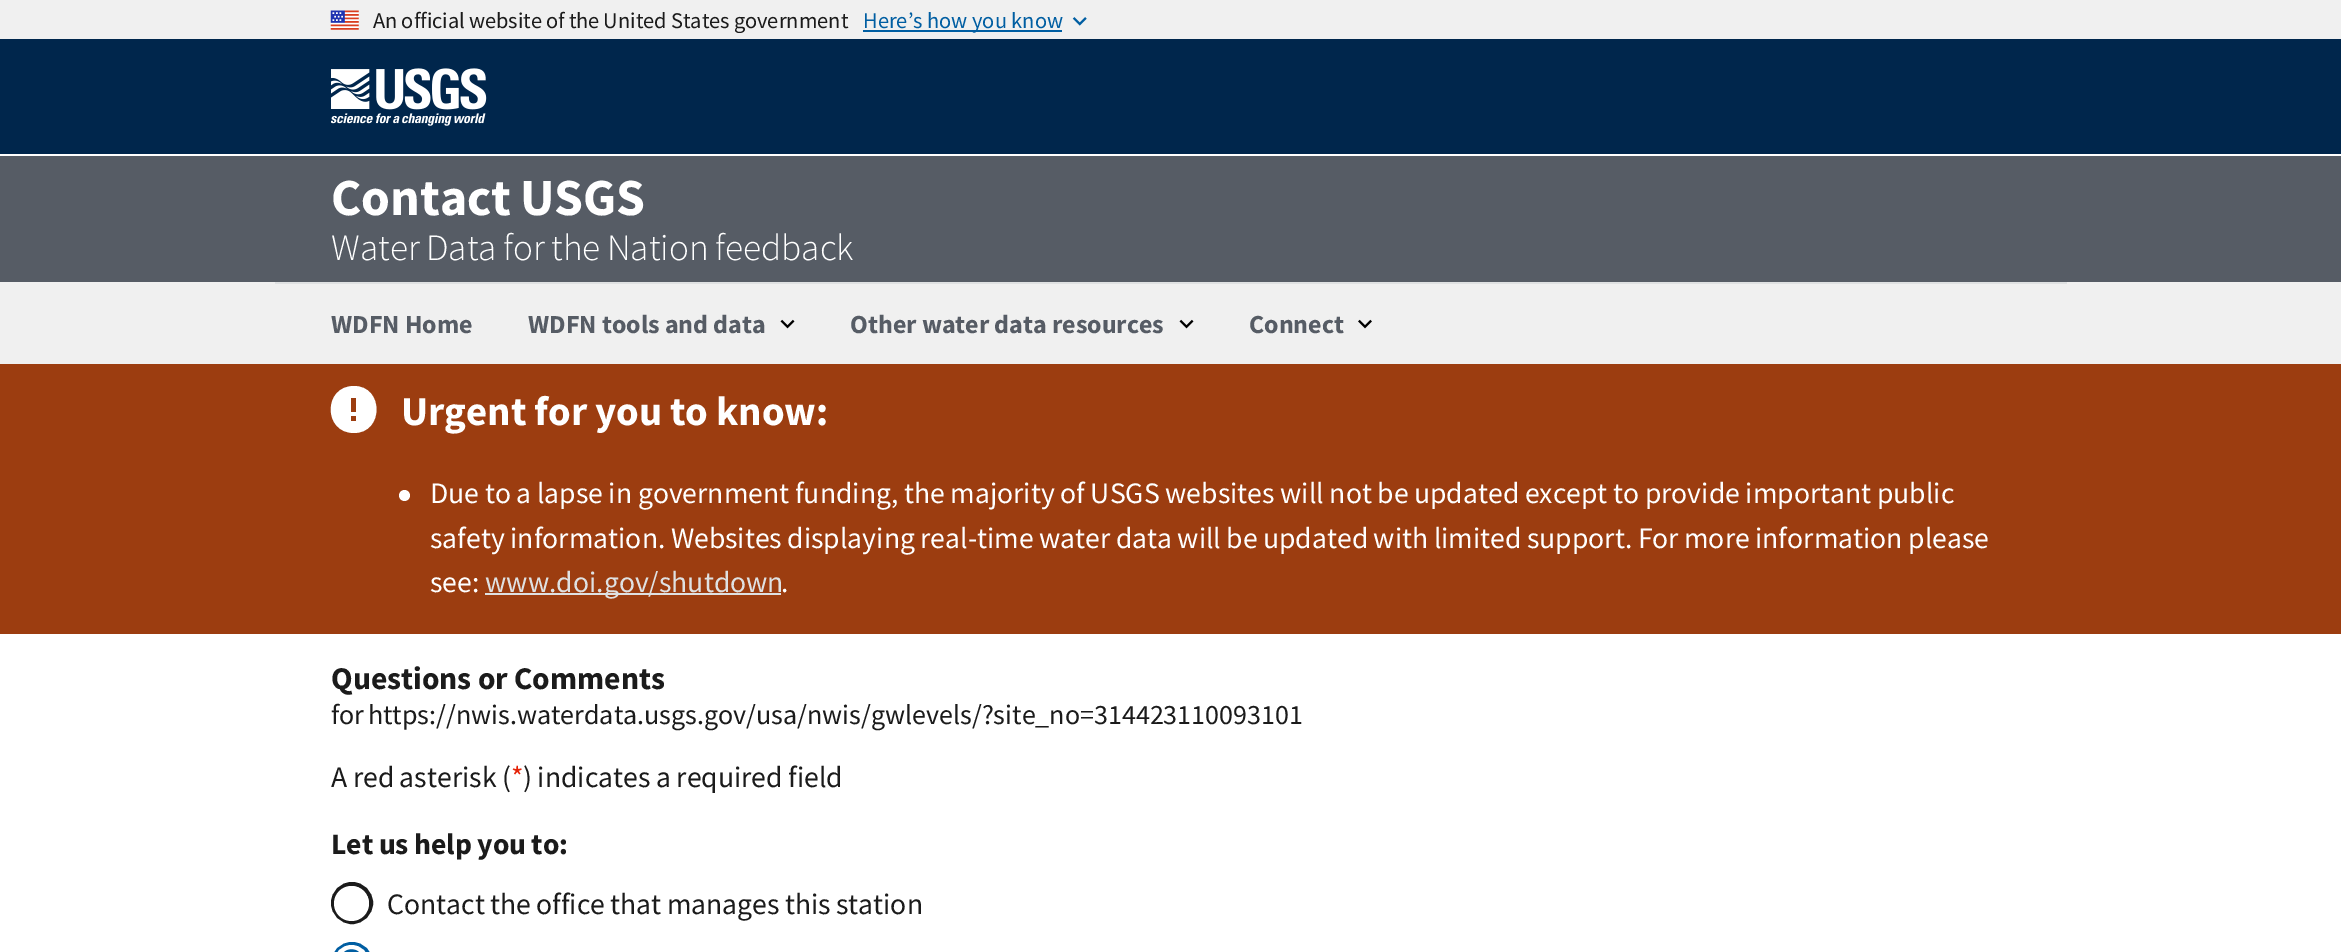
%!PS
<< /PageSize [2341 952] >> setpagedevice
/mt/moveto load def
/li/lineto load def
/ct/curveto load def
/cp/closepath load def
/fl/fill load def
/st/stroke load def
/gs/gsave load def
/gr/grestore load def
/lw/setlinewidth load def
/co { dup -16 bitshift 255 div exch dup -8 bitshift 255 and 255 div exch 255 and 255 div setrgbcolor } def
/fn { [ exch dup neg 0 0 3 -1 roll 0 0 ] selectfont } def
/tx { co fn moveto show } def
/bx { co rectfill } def
/ci { newpath 0 360 arc closepath } def
/rr { 5 dict begin { /r /h /w /y /x } { exch def } forall
  x r add y moveto x w add y 2 copy h add r arct x w add y h add x 1 index r arct
  x y h add x y r arct x y 2 copy exch w add exch r arct closepath end } def
/im { 5 dict begin { /h /w /y /x /name } { exch def } forall
  gsave x y translate w h scale
  w h 8 [w 0 0 h 0 0] name (r) file false 3 colorimage grestore end } def
0 952 translate 1 -1 scale
4 setmiterlimit
0 0 2341 952 16#FFFFFF bx
0 0 2341 39 16#F0F0F0 bx
(media/1.raw) 330 10 29 20 im
863 30 199 2 16#005EA2 bx
(media/2.raw) 1072 17 15 9 im
0 39 2341 115 16#00264C bx
(media/3.raw) 331 68 156 58 im
0 156 2341 126 16#565C65 bx
0 282 2341 82 16#F0F0F0 bx
275 282 1792 2 16#DFE1E2 bx
(media/4.raw) 780 319 15 10 im
(media/4.raw) 1179 319 15 10 im
(media/5.raw) 1358 319 14 10 im
0 364 2341 270 16#9C3D10 bx
16#FFFFFF co
354 386 mt 323 386 323 433 354 433 ct 384 433 384 386 354 386 ct cp 356 421 mt 351 421 li 351 416 li 356 416 li cp 356 412 mt 351 412 li 351 398 li 356 398 li cp fl
404.5 495.5 5.5 ci fl
485 593 296 2 16#DFE1E2 bx
16#1B1B1B co
4 lw
352 903 19 ci st
16#FFFFFF co
351.5 903.5 17.5 ci fl
16#005EA2 co
333 944 38 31 19 rr st
336 947 31 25 15.5 rr gs fl gr
16#FFFFFF co
st
/SourceSansPro-Regular 22.4 fn
16#1B1B1B co
373 28 mt -.5 0 32 (An official website of the United States government) widthshow
(Here’s how you know) 863 28 /SourceSansPro-Regular 22.4 16#005EA2 tx
/SourceSansPro-Bold 52 fn
16#FFFFFF co
331 215 mt -2 0 32 (Contact USGS) widthshow
/SourceSansPro-Light 37.25 fn
331 260 mt -1 0 32 (Water Data for the Nation feedback) widthshow
(WDFN Home) 331 333 /SourceSansPro-Bold 26 16#565C65 tx
(WDFN tools and data) 528 333 /SourceSansPro-Bold 26 16#565C65 tx
(Other water data resources) 850 333 /SourceSansPro-Bold 26 16#565C65 tx
(Connect) 1249 333 /SourceSansPro-Bold 26 16#565C65 tx
/SourceSansPro-Bold 40.9 fn
16#FFFFFF co
401 425 mt -.5 0 32 (Urgent for you to know:) widthshow
/SourceSansPro-Regular 29.68 fn
430 503 mt -.4 0 32 (Due to a lapse in government funding, the majority of USGS websites will not be updated except to provide important public) widthshow
430 548 mt -.6 0 32 (safety information. Websites displaying real-time water data will be updated with limited support. For more information please) widthshow
(see:) 430 592 /SourceSansPro-Regular 29.68 16#FFFFFF tx
(www.doi.gov/shutdown) 485 592 /SourceSansPro-Regular 29.68 16#DFE1E2 tx
(.) 781 592 /SourceSansPro-Regular 29.68 16#FFFFFF tx
(Questions or Comments) 331 689 /SourceSansPro-Bold 31.6 16#1B1B1B tx
/SourceSansPro-Regular 28 fn
331 724 mt -2 0 32 (for https://nwis.waterdata.usgs.gov/usa/nwis/gwlevels/?site_no=314423110093101) widthshow
/SourceSansPro-Regular 29.68 fn
331 787 mt -.5 0 32 (A red asterisk \() widthshow
(*) 511 787 /SourceSansPro-Regular 29.68 16#E52207 tx
16#1B1B1B co
523 787 mt -.5 0 32 (\) indicates a required field) widthshow
/SourceSansPro-Bold 29.68 fn
331 854 mt -.5 0 32 (Let us help you to:) widthshow
/SourceSansPro-Regular 29.68 fn
387 914 mt -.75 0 32 (Contact the office that manages this station) widthshow
showpage
